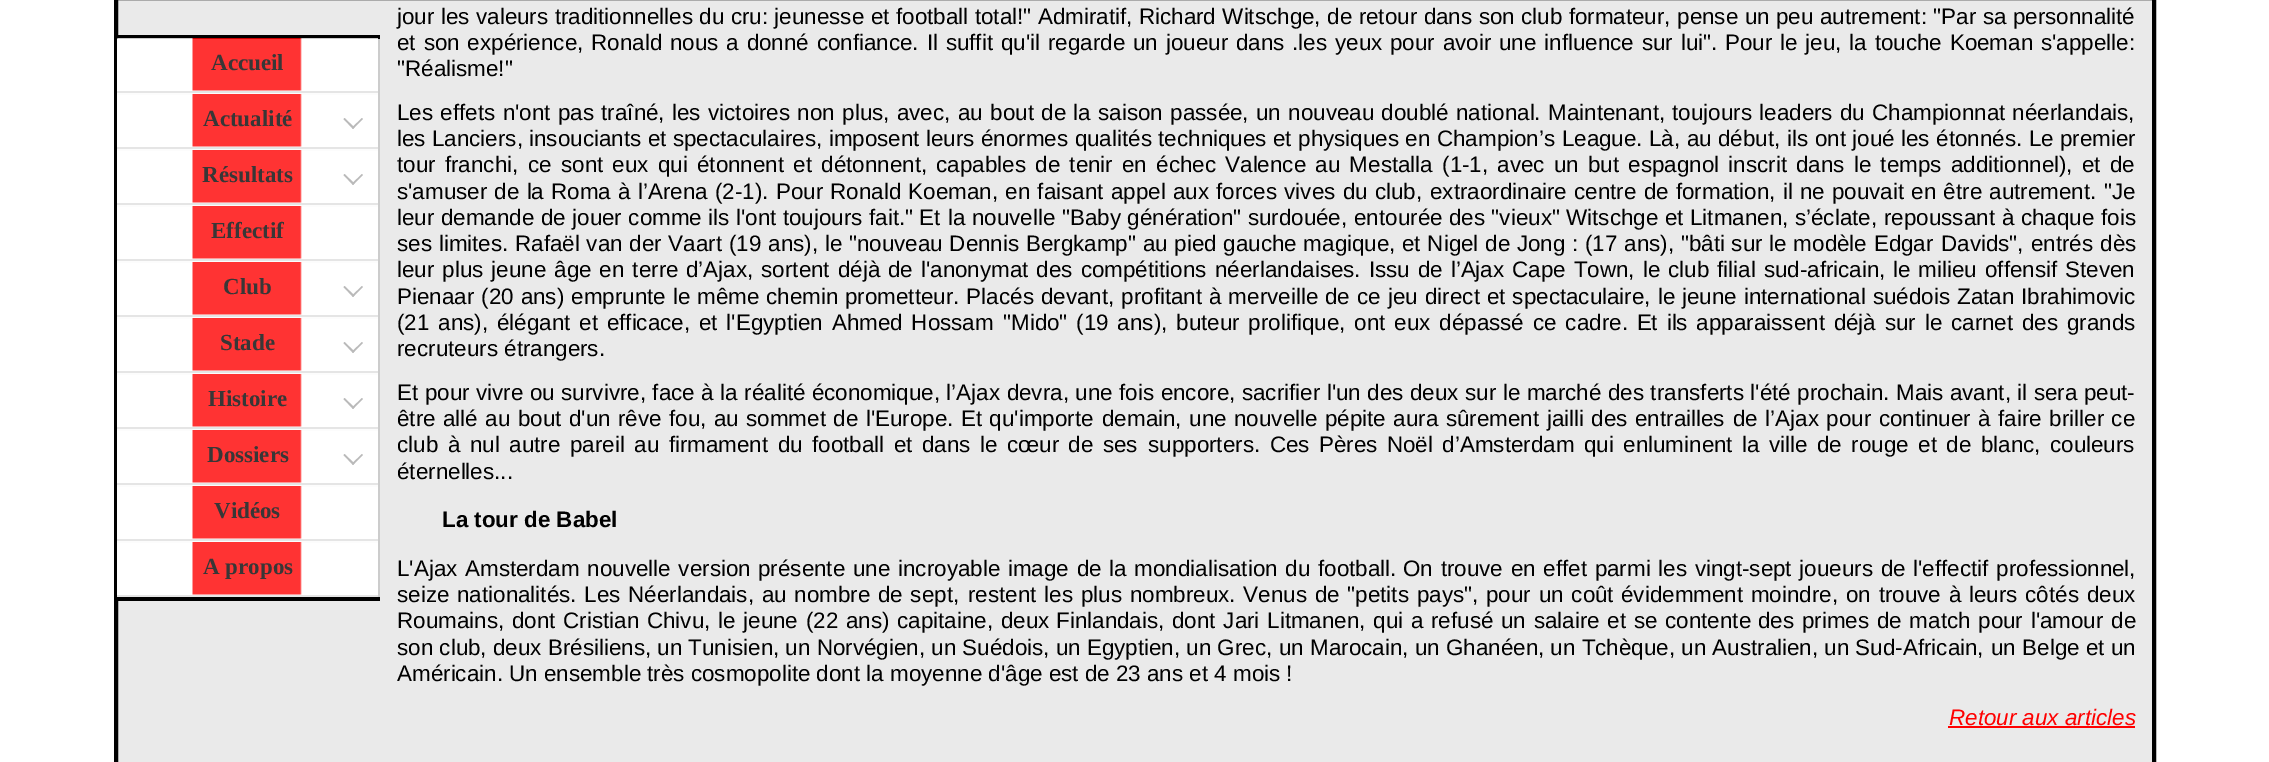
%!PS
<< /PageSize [2269 762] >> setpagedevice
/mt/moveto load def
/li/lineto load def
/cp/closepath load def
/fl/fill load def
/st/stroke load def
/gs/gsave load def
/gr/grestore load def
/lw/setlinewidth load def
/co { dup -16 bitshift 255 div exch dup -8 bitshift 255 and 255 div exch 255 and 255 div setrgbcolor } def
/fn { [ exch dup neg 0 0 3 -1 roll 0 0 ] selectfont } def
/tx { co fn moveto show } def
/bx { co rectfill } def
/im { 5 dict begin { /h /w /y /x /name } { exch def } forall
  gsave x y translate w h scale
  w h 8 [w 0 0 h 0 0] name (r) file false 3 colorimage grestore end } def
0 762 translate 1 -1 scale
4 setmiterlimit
0 0 2269 762 16#FFFFFF bx
16#EAEAEA co
116 -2 mt 2154 -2 li 2154 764 li 116 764 li cp gs fl gr
16#000000 co
4 lw
st
117 35 263 4 16#000000 bx
117 597 263 4 16#000000 bx
378 39 2 558 16#CCCCCC bx
117 91 261 2 16#E5E5E5 bx
117 39 261 52 16#FFFFFF bx
(media/1.raw) 117 38 261 53 im
117 93 261 2 16#FCFCFC bx
117 147 261 2 16#E5E5E5 bx
117 95 261 52 16#FFFFFF bx
(media/2.raw) 192 94 110 53 im
16#BABABA co
362 118 mt 363 119 li 353 129 li 352 127.5 li cp fl
344.5 118 mt 354.5 127.5 li 353 129 li 343.5 119 li cp fl
117 149 261 2 16#FCFCFC bx
117 203 261 2 16#E5E5E5 bx
117 151 261 52 16#FFFFFF bx
(media/2.raw) 192 150 110 53 im
16#BABABA co
362 174 mt 363 175 li 353 185 li 352 183.5 li cp fl
344.5 174 mt 354.5 183.5 li 353 185 li 343.5 175 li cp fl
117 205 261 2 16#FCFCFC bx
117 259 261 2 16#E5E5E5 bx
117 207 261 52 16#FFFFFF bx
(media/2.raw) 192 206 110 53 im
117 261 261 2 16#FCFCFC bx
117 315 261 2 16#E5E5E5 bx
117 263 261 52 16#FFFFFF bx
(media/2.raw) 192 262 110 53 im
16#BABABA co
362 286 mt 363 287 li 353 297 li 352 295.5 li cp fl
344.5 286 mt 354.5 295.5 li 353 297 li 343.5 287 li cp fl
117 317 261 2 16#FCFCFC bx
117 371 261 2 16#E5E5E5 bx
117 319 261 52 16#FFFFFF bx
(media/2.raw) 192 318 110 53 im
16#BABABA co
362 342 mt 363 343 li 353 353 li 352 351.5 li cp fl
344.5 342 mt 354.5 351.5 li 353 353 li 343.5 343 li cp fl
117 373 261 2 16#FCFCFC bx
117 427 261 2 16#E5E5E5 bx
117 375 261 52 16#FFFFFF bx
(media/2.raw) 192 374 110 53 im
16#BABABA co
362 398 mt 363 399 li 353 409 li 352 407.5 li cp fl
344.5 398 mt 354.5 407.5 li 353 409 li 343.5 399 li cp fl
117 429 261 2 16#FCFCFC bx
117 483 261 2 16#E5E5E5 bx
117 431 261 52 16#FFFFFF bx
(media/2.raw) 192 430 110 53 im
16#BABABA co
362 454 mt 363 455 li 353 465 li 352 463.5 li cp fl
344.5 454 mt 354.5 463.5 li 353 465 li 343.5 455 li cp fl
117 485 261 2 16#FCFCFC bx
117 539 261 2 16#E5E5E5 bx
117 487 261 52 16#FFFFFF bx
(media/2.raw) 192 486 110 53 im
117 541 261 2 16#FCFCFC bx
117 595 261 2 16#E5E5E5 bx
117 543 261 52 16#FFFFFF bx
(media/2.raw) 192 542 110 53 im
1948 726 187 2 16#FF0000 bx
(Accueil) 211 70 /LiberationSerif-Bold 23 16#383737 tx
(Actualité) 203 126 /LiberationSerif-Bold 23 16#383737 tx
(Résultats) 202 182 /LiberationSerif-Bold 23 16#383737 tx
(Effectif) 211 238 /LiberationSerif-Bold 23 16#383737 tx
(Club) 223 294 /LiberationSerif-Bold 23 16#383737 tx
(Stade) 220 350 /LiberationSerif-Bold 23 16#383737 tx
(Histoire) 208 406 /LiberationSerif-Bold 23 16#383737 tx
(Dossiers) 207 462 /LiberationSerif-Bold 23 16#383737 tx
(Vidéos) 214 518 /LiberationSerif-Bold 23 16#383737 tx
(A propos) 203 574 /LiberationSerif-Bold 23 16#383737 tx
/LiberationSans-Regular 22.4 fn
16#000000 co
397 24 mt .25 0 32 (jour les valeurs traditionnelles du cru: jeunesse et) widthshow
896 24 mt .25 0 32 (football total!" Admiratif, Richard Witschge, de retour dans son) widthshow
1521 24 mt .25 0 32 (club formateur, pense un peu autrement: "Par sa personnalité) widthshow
397 50 mt 1.6 0 32 (et son expérience, Ronald nous a donné confiance. Il suffit) widthshow
1001 50 mt 1.6 0 32 (qu'il regarde un joueur dans .les yeux pour avoir une influence sur lui".) widthshow
1725 50 mt 1.6 0 32 (Pour le jeu, la touche Koeman s'appelle:) widthshow
("Réalisme!") 397 76 /LiberationSans-Regular 22.4 16#000000 tx
397 120 mt 1.1 0 32 (Les effets n'ont pas traîné, les victoires non plus, avec,) widthshow
958 120 mt 1.1 0 32 (au bout de la saison passée, un nouveau doublé national.) widthshow
1548 120 mt 1 0 32 (Maintenant, toujours leaders du Championnat néerlandais,) widthshow
(les Lanciers,) 397 146 /LiberationSans-Regular 22.4 16#000000 tx
529 146 mt .25 0 32 (insouciants et spectaculaires, imposent leurs énormes qualités techniques et physiques en Champion’s League. Là, au début,) widthshow
1787 146 mt .25 0 32 (ils ont joué les étonnés. Le premier) widthshow
397 172 mt 3 0 32 (tour franchi,) widthshow
528 172 mt 3 0 32 (ce sont eux qui étonnent et détonnent, capables de tenir) widthshow
1122 172 mt 3 0 32 (en échec Valence au Mestalla \(1-1, avec un but espagnol inscrit) widthshow
1796 172 mt 3 0 32 (dans le temps additionnel\), et de) widthshow
397 199 mt 1 0 32 (s'amuser de la Roma à l’Arena) widthshow
715 199 mt 1 0 32 (\(2-1\). Pour Ronald Koeman, en faisant appel aux forces vives du club,) widthshow
1430 199 mt 1 0 32 (extraordinaire centre de formation, il ne pouvait en être autrement.) widthshow
("Je) 2104 199 /LiberationSans-Regular 22.4 16#000000 tx
397 225 mt .25 0 32 (leur demande de jouer comme ils l'ont toujours fait." Et) widthshow
948 225 mt .25 0 32 (la nouvelle "Baby génération" surdouée,) widthshow
1354 225 mt .25 0 32 (entourée des "vieux" Witschge et Litmanen, s’éclate,) widthshow
1884 225 mt .5 0 32 (repoussant à chaque fois) widthshow
397 251 mt .5 0 32 (ses limites. Rafaël van der Vaart) widthshow
729 251 mt .5 0 32 (\(19 ans\), le "nouveau Dennis Bergkamp" au pied gauche magique,) widthshow
1402 251 mt .5 0 32 (et Nigel de Jong : \(17 ans\), "bâti sur le modèle Edgar) widthshow
1941 251 mt 1 0 32 (Davids", entrés dès) widthshow
397 277 mt 1.75 0 32 (leur plus jeune âge en terre) widthshow
686 277 mt 1.75 0 32 (d’Ajax, sortent déjà de l'anonymat des compétitions) widthshow
1215 277 mt 1.75 0 32 (néerlandaises. Issu de l’Ajax Cape Town, le club filial sud-africain,) widthshow
1893 277 mt 1.75 0 32 (le milieu offensif Steven) widthshow
397 304 mt .75 0 32 (Pienaar \(20 ans\) emprunte le même chemin) widthshow
845 304 mt .75 0 32 (prometteur. Placés devant, profitant à merveille de ce jeu) widthshow
1425 304 mt .75 0 32 (direct et spectaculaire, le jeune international suédois Zatan Ibrahimovic) widthshow
397 330 mt 2.6 0 32 (\(21 ans\), élégant et efficace, et l'Egyptien Ahmed Hossam) widthshow
1003 330 mt 2.6 0 32 ("Mido" \(19 ans\), buteur prolifique, ont eux dépassé) widthshow
1533 330 mt 2.6 0 32 (ce cadre. Et ils apparaissent déjà sur le carnet des grands) widthshow
(recruteurs étrangers.) 397 356 /LiberationSans-Regular 22.4 16#000000 tx
397 400 mt .3 0 32 (Et pour vivre ou survivre, face à la réalité économique, l’Ajax devra, une fois encore, sacrifier l'un des deux sur le marché des transferts l'été prochain. Mais avant, il sera peut-) widthshow
(être) 397 426 /LiberationSans-Regular 22.4 16#000000 tx
443 426 mt 1.25 0 32 (allé au bout d'un rêve fou, au sommet de l'Europe. Et qu'importe) widthshow
1102 426 mt 1.25 0 32 (demain, une nouvelle pépite aura sûrement jailli des entrailles) widthshow
1733 426 mt 1.25 0 32 (de l’Ajax pour continuer à faire briller ce) widthshow
397 452 mt 3.25 0 32 (club à) widthshow
470 452 mt 3.25 0 32 (nul autre pareil au firmament du football et dans le cœur de ses) widthshow
1148 452 mt 3.25 0 32 (supporters. Ces Pères Noël d’Amsterdam qui enluminent) widthshow
1742 452 mt 3.25 0 32 (la ville de rouge et de blanc, couleurs) widthshow
(éternelles...) 397 479 /LiberationSans-Regular 22.4 16#000000 tx
(La tour de Babel) 442 527 /LiberationSans-Bold 22.4 16#000000 tx
/LiberationSans-Regular 22.4 fn
397 576 mt 1.5 0 32 (L'Ajax Amsterdam nouvelle version) widthshow
758 576 mt 1.5 0 32 (présente une incroyable image de la mondialisation du football.) widthshow
1403 576 mt 1.5 0 32 (On trouve en effet parmi les vingt-sept joueurs de l'effectif professionnel,) widthshow
397 602 mt 1.5 0 32 (seize nationalités. Les Néerlandais, au nombre de sept,) widthshow
968 602 mt 1.6 0 32 (restent les plus nombreux. Venus de "petits pays", pour un coût) widthshow
1621 602 mt 1.6 0 32 (évidemment moindre, on trouve à leurs côtés) widthshow
(deux) 2087 602 /LiberationSans-Regular 22.4 16#000000 tx
397 628 mt 1.5 0 32 (Roumains, dont Cristian Chivu, le jeune \(22 ans\) capitaine, deux) widthshow
1056 628 mt 1.5 0 32 (Finlandais, dont Jari Litmanen, qui a refusé un salaire et se contente) widthshow
1758 628 mt 1.5 0 32 (des primes de match pour l'amour de) widthshow
(son club, deux Brésiliens, un Tunisien, un Norvégien, un Suédois, un Egyptien, un Grec,) 397 655 /LiberationSans-Regular 22.4 16#000000 tx
(un Marocain, un Ghanéen, un Tchèque, un Australien, un Sud-Africain,) 1279 655 /LiberationSans-Regular 22.4 16#000000 tx
(un Belge et un) 1991 655 /LiberationSans-Regular 22.4 16#000000 tx
(Américain. Un ensemble très cosmopolite dont la moyenne d'âge est de 23 ans et 4 mois !) 397 681 /LiberationSans-Regular 22.4 16#000000 tx
(Retour aux articles) 1949 725 /LiberationSans-Italic 22.4 16#FF0000 tx
showpage
